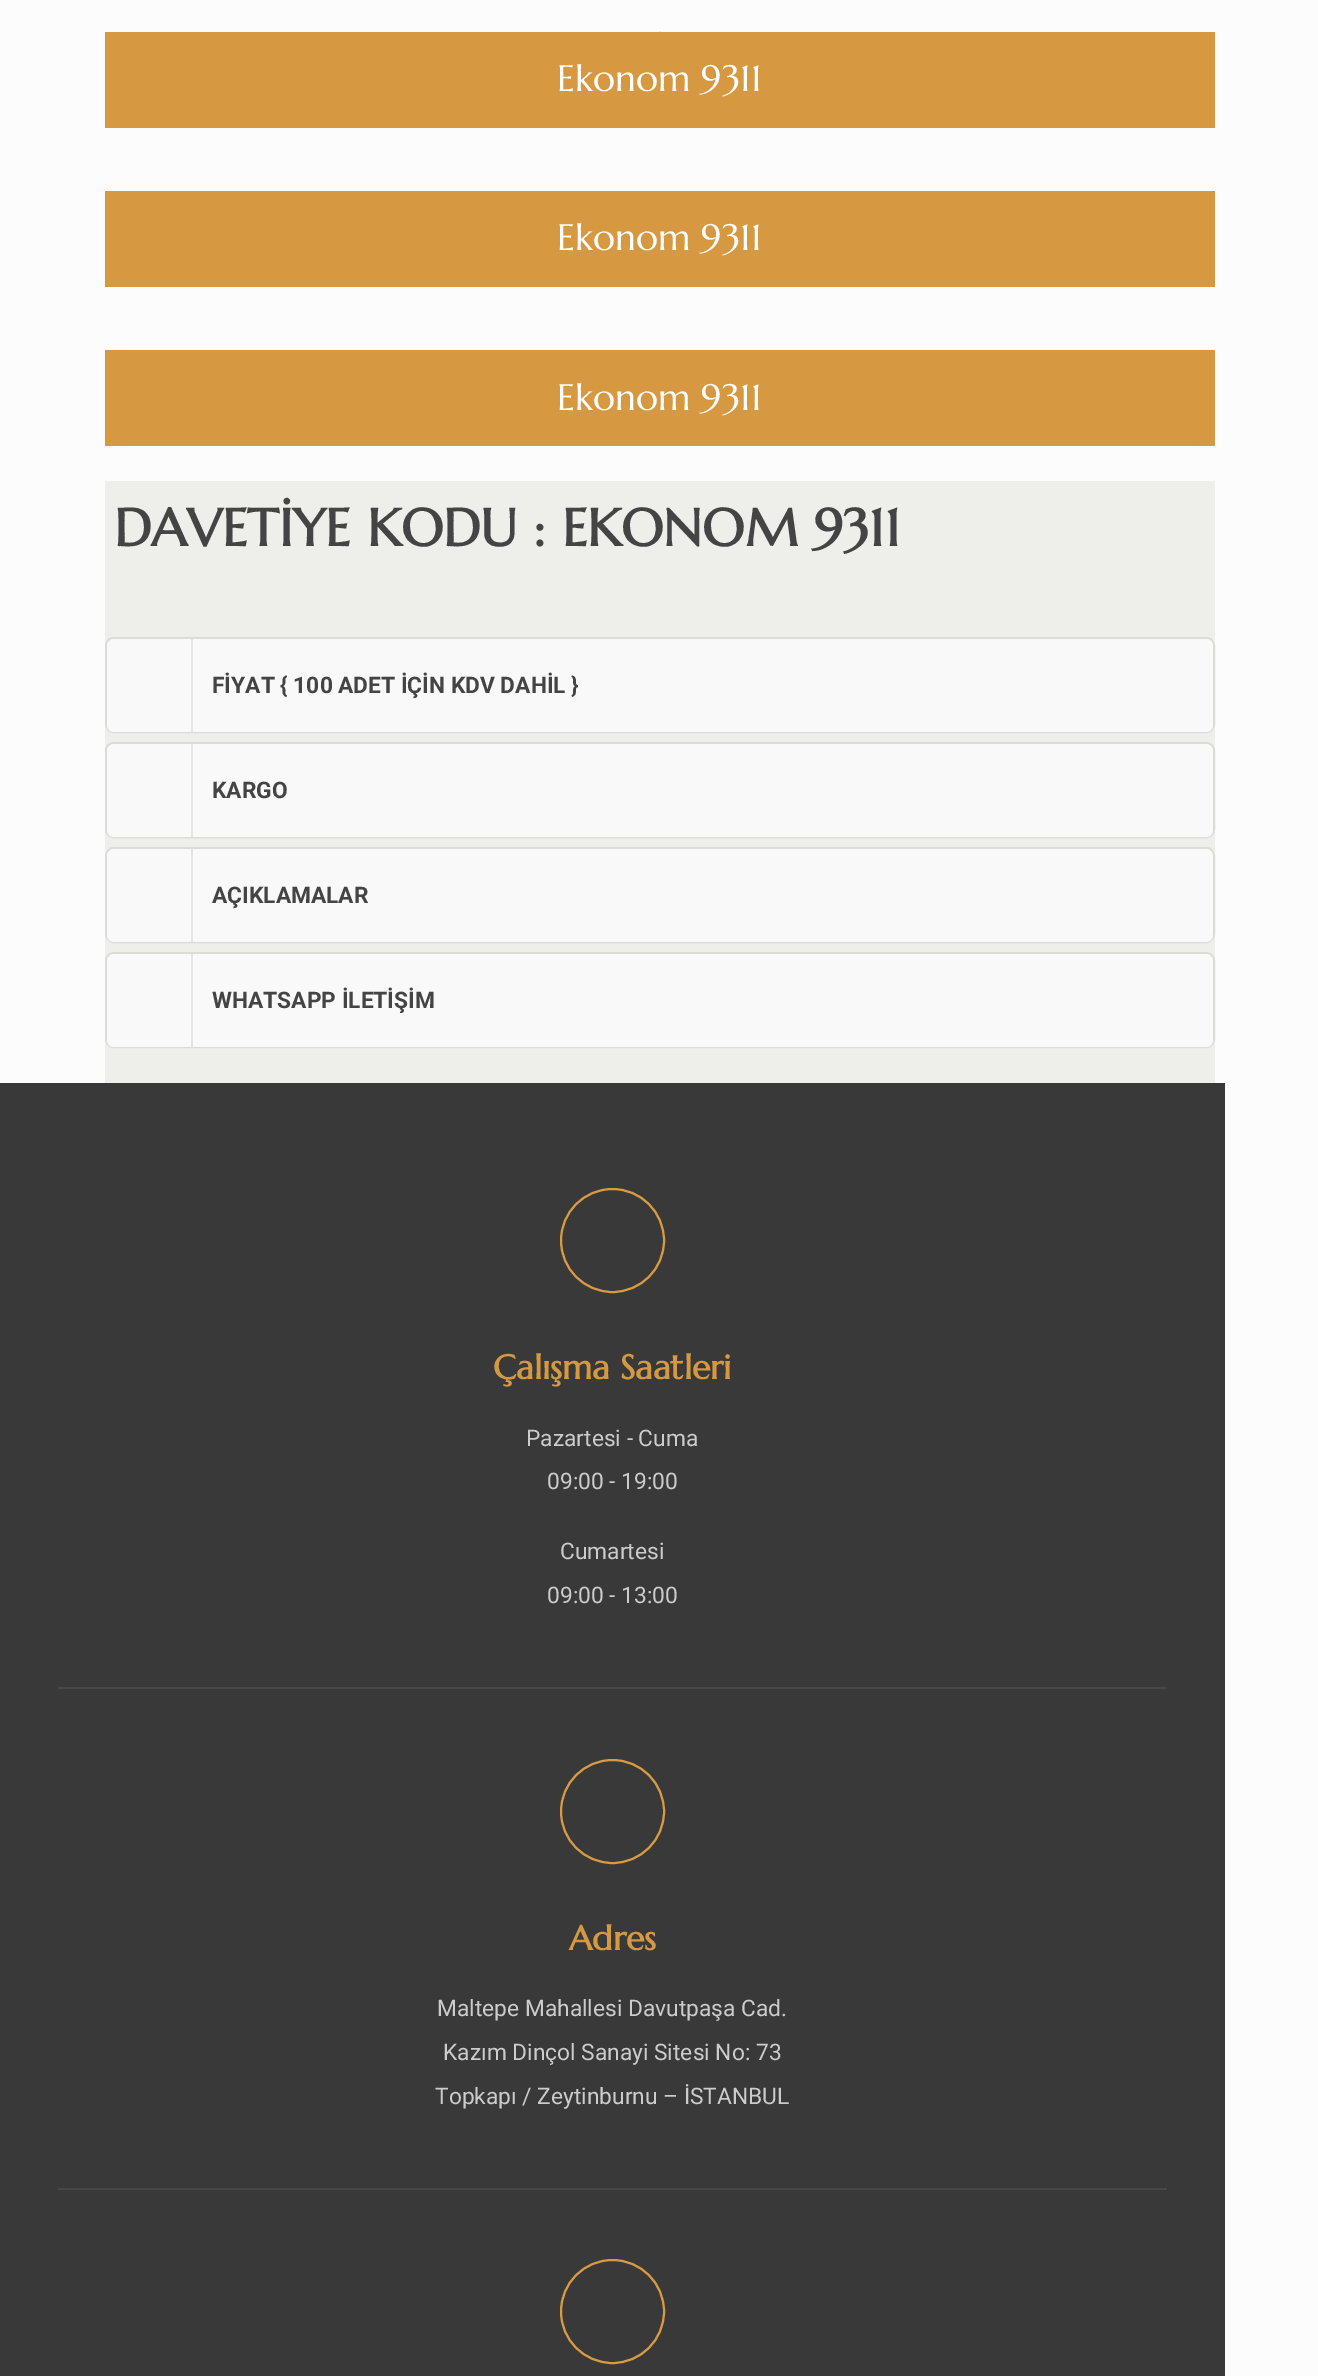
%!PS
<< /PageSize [1318 2376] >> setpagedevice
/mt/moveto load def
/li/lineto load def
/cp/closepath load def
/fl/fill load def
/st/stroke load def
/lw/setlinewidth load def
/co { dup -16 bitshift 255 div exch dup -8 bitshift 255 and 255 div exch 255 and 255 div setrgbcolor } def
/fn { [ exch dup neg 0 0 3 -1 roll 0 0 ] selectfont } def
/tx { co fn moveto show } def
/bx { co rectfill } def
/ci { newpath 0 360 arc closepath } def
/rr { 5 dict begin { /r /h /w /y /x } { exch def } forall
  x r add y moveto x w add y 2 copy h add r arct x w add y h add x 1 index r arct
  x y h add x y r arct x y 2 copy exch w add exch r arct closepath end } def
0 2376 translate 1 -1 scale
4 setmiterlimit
0 0 1318 2376 16#FCFCFC bx
105 32 1110 96 16#D69942 bx
674 45.5 mt 646 45.5 li 660 31.5 li cp fl
105 191 1110 96 16#D69942 bx
105 350 1110 96 16#D69942 bx
105 481 1110 602 16#EEEEEB bx
16#DBDBD8 co
2 lw
106 638 1108 94 8 rr st
16#F9F9F9 co
107 639 1106 93 7 rr fl
191 639 2 93 16#E5E5E5 bx
16#DBDBD8 co
106 743 1108 94 8 rr st
16#F9F9F9 co
107 744 1106 93 7 rr fl
191 744 2 93 16#E5E5E5 bx
16#DBDBD8 co
106 848 1108 94 8 rr st
16#F9F9F9 co
107 849 1106 93 7 rr fl
191 849 2 93 16#E5E5E5 bx
16#DBDBD8 co
106 953 1108 94 8 rr st
16#F9F9F9 co
107 954 1106 93 7 rr fl
191 954 2 93 16#E5E5E5 bx
0 1083 1225 1293 16#393939 bx
58 1687 1109 2 16#474747 bx
16#D89B43 co
612.5 1240.5 51.5 ci st
58 2188 1109 2 16#474747 bx
16#D89B43 co
612.5 1811.5 51.5 ci st
612.5 2311.5 51.5 ci st
(Ekonom 9311) 557 91 /Marcellus-Regular 36.75 16#FFFFFF tx
(Ekonom 9311) 557 250 /Marcellus-Regular 36.75 16#FFFFFF tx
(Ekonom 9311) 557 410 /Marcellus-Regular 36.75 16#FFFFFF tx
(DAVETİYE KODU : EKONOM 9311) 114 546 /Marcellus-Bold 52.5 16#444444 tx
(FİYAT { 100 ADET İÇİN KDV DAHİL }) 212 693 /Roboto-Bold 22.75 16#444444 tx
(KARGO) 212 798 /Roboto-Bold 22.75 16#444444 tx
(AÇIKLAMALAR) 212 903 /Roboto-Bold 22.75 16#444444 tx
(WHATSAPP İLETİŞİM) 212 1008 /Roboto-Bold 22.75 16#444444 tx
(Çalışma Saatleri) 493 1379 /Marcellus-Bold 34 16#D59942 tx
(Pazartesi - Cuma) 526 1446 /Roboto-Regular 22.75 16#CCCCCC tx
(09:00 - 19:00) 547 1489 /Roboto-Regular 22.75 16#CCCCCC tx
(Cumartesi) 560 1559 /Roboto-Regular 22.75 16#CCCCCC tx
(09:00 - 13:00) 547 1603 /Roboto-Regular 22.75 16#CCCCCC tx
(Adres) 569 1950 /Marcellus-Bold 34 16#D59942 tx
(Maltepe Mahallesi Davutpaşa Cad.) 437 2016 /Roboto-Regular 22.75 16#CCCCCC tx
(Kazım Dinçol Sanayi Sitesi No: 73) 443 2060 /Roboto-Regular 22.75 16#CCCCCC tx
(Topkapı / Zeytinburnu – İSTANBUL) 435 2104 /Roboto-Regular 22.75 16#CCCCCC tx
showpage
